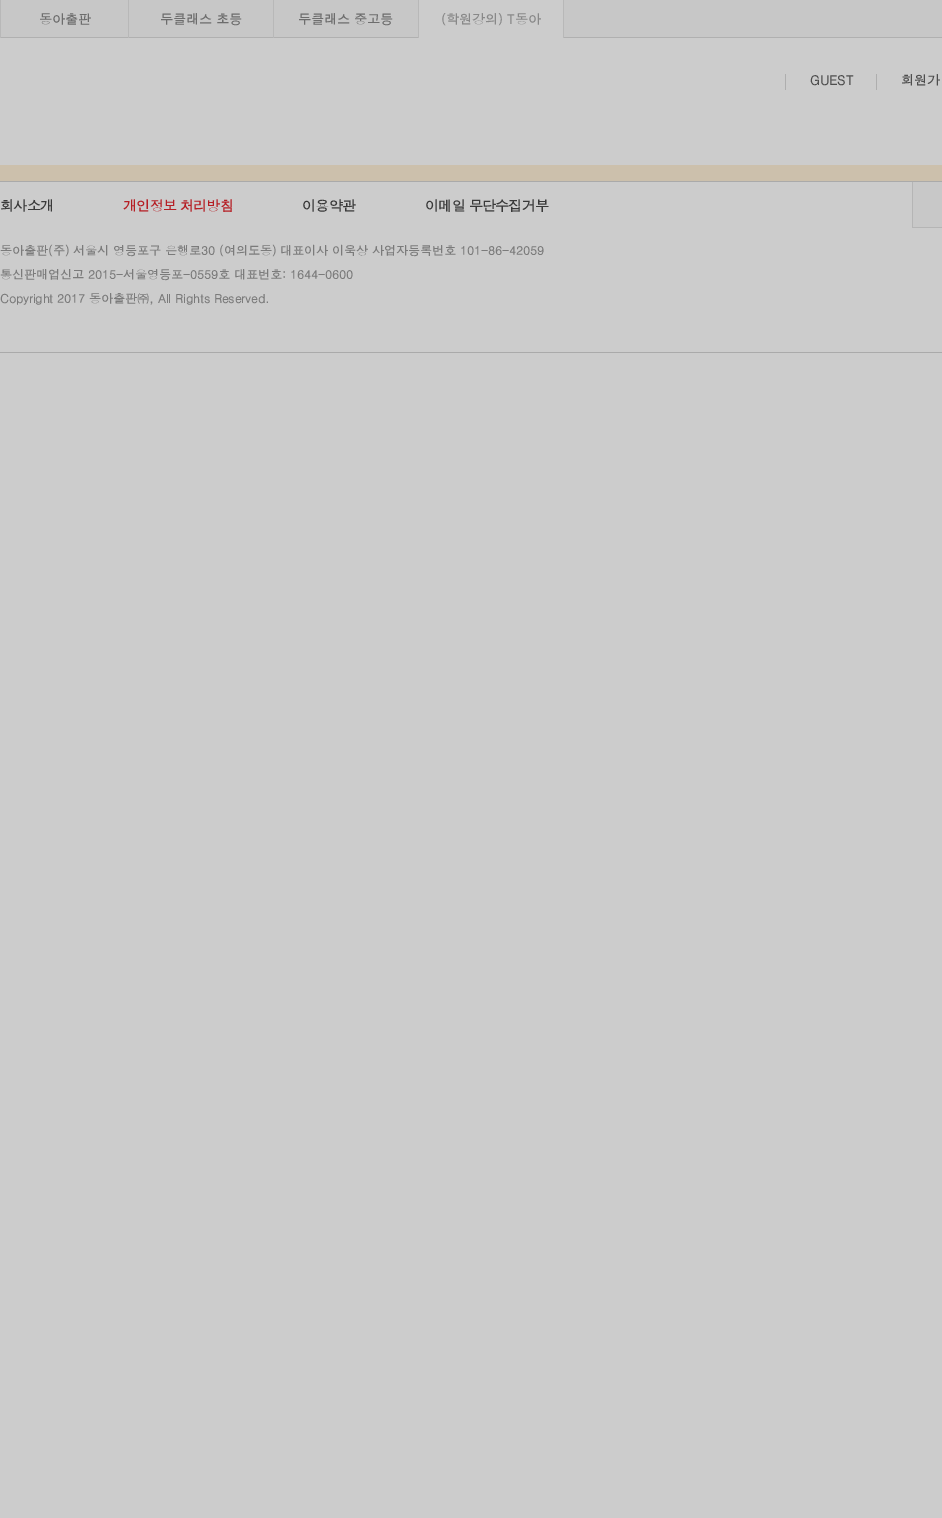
%!PS
<< /PageSize [942 1518] >> setpagedevice
/mt/moveto load def
/co { dup -16 bitshift 255 div exch dup -8 bitshift 255 and 255 div exch 255 and 255 div setrgbcolor } def
/fn { [ exch dup neg 0 0 3 -1 roll 0 0 ] selectfont } def
/tx { co fn moveto show } def
/bx { co rectfill } def
0 1518 translate 1 -1 scale
4 setmiterlimit
0 0 942 1518 16#CCCCCC bx
1 0 941 37 16#C7C7C7 bx
0 37 942 1 16#B0B0B0 bx
128 0 1 38 16#B8B8B8 bx
0 0 1 38 16#B8B8B8 bx
273 0 1 38 16#B8B8B8 bx
418 0 1 38 16#B8B8B8 bx
419 0 144 38 16#CCCCCC bx
563 0 1 38 16#B8B8B8 bx
785 74 1 16 16#AEAEAE bx
876 74 1 16 16#AEAEAE bx
0 165 942 16 16#CCC0AC bx
0 181 942 1 16#AAAAAA bx
913 182 29 45 16#C8C8C8 bx
912 227 30 1 16#B5B5B5 bx
912 182 1 46 16#B5B5B5 bx
0 352 942 1 16#AAAAAA bx
(동아출판) 39 24 /Dotum-Bold 13 16#6D6D6D tx
(두클래스 초등) 160 24 /Dotum-Bold 13 16#6D6D6D tx
(두클래스 중고등) 298 24 /Dotum-Bold 13 16#6D6D6D tx
(\(학원강의\) T동아) 441 24 /Dotum-Bold 13 16#888888 tx
(GUEST) 810 85 /Dotum-Bold 13 16#4E4E4E tx
(회원가) 901 85 /Dotum-Bold 13 16#4E4E4E tx
/Dotum-Bold 14 fn
16#3A3A3A co
0 211 mt -.75 0 (회사소개) ashow
16#B61E24 co
123 211 mt -.75 0 (개인정보 처리방침) ashow
16#3A3A3A co
302 211 mt -.75 0 (이용약관) ashow
425 211 mt -.75 0 (이메일 무단수집거부) ashow
(동아출판\(주\) 서울시 영등포구 은행로30 \(여의도동\) 대표이사 이욱상 사업자등록번호 101-86-42059) 0 255 /Dotum-Bold 12 16#7B7B7B tx
(통신판매업신고 2015-서울영등포-0559호 대표번호: 1644-0600) 0 279 /Dotum-Bold 12 16#7B7B7B tx
(Copyright 2017 동아출판㈜, All Rights Reserved.) 0 303 /Dotum-Bold 12 16#7B7B7B tx
showpage
